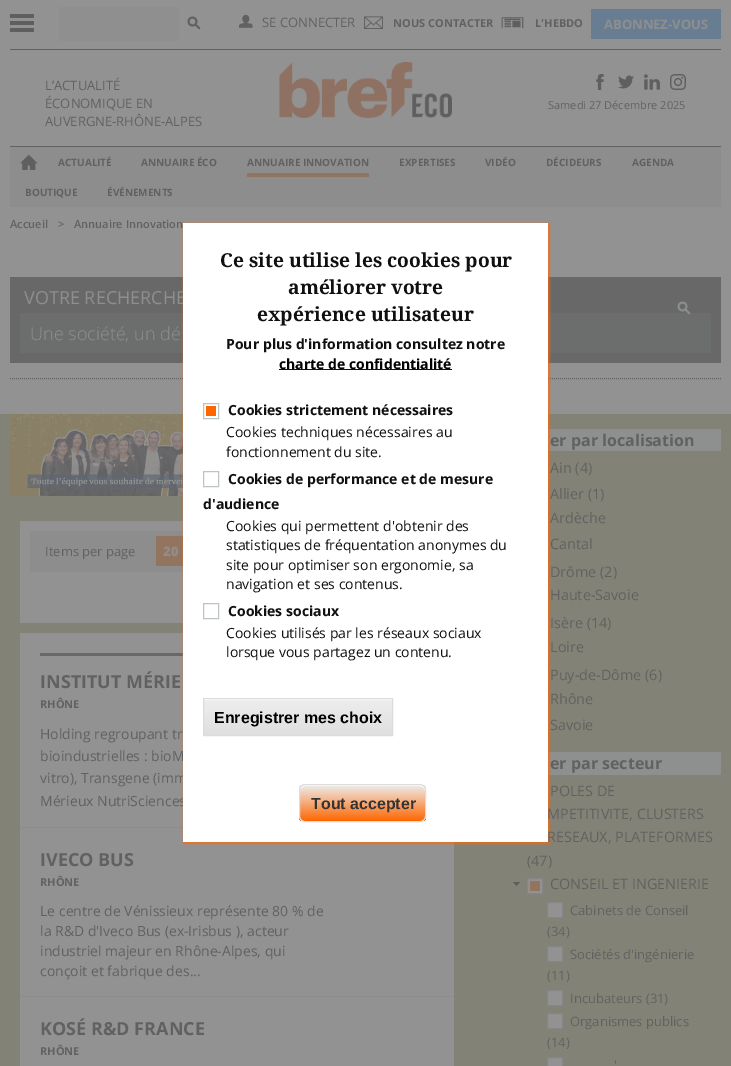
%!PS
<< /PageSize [731 1066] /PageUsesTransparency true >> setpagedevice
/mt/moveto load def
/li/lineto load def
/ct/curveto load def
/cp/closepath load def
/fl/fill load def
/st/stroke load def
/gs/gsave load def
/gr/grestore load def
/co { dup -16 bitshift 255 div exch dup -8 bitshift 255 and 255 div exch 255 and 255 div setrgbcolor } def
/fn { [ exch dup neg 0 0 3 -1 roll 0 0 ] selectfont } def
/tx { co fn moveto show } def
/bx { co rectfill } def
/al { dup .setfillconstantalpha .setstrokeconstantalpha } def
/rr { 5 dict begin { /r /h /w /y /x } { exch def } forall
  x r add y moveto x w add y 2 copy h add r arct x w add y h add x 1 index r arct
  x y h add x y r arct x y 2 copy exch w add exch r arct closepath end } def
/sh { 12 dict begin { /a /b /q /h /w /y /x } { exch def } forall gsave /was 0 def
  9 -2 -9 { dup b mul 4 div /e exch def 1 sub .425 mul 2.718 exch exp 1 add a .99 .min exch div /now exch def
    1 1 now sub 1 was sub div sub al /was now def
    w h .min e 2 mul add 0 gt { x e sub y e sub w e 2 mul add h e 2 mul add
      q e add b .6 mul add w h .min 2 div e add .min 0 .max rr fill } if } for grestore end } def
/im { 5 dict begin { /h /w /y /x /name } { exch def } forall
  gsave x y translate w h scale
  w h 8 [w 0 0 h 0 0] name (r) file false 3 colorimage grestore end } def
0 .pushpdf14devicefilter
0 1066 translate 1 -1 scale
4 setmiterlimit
0 0 731 1066 16#929292 bx
10 49 711 1 16#616161 bx
10 21 24 4 16#5F5F5F bx
10 14 24 4 16#5F5F5F bx
10 28 24 4 16#5F5F5F bx
59 7 120 34 16#8F8F8F bx
(media/1.raw) 187 16 14 14 im
(media/2.raw) 239 14 14 14 im
(media/3.raw) 364 16 19 13 im
(media/4.raw) 501 17 23 12 im
591 9 130 30 16#697D92 bx
10 146 711 1 16#616161 bx
(media/5.raw) 279 62 173 56 im
(media/6.raw) 596 74 8 16 im
(media/7.raw) 618 75 16 14 im
(media/8.raw) 644 74 16 16 im
(media/9.raw) 670 74 16 16 im
10 147 711 60 16#8D8D8D bx
(media/10.raw) 20 154 18 16 im
247 173 122 4 16#92745F bx
10 277 711 86 16#676867 bx
20 313 691 40 16#6C6D6D bx
(media/11.raw) 677 301 14 14 im
16#616161 co
[1 1] 0 setdash
10 378.5 mt 721 378.5 li st
0 414 731 652 16#838276 bx
(media/12.raw) 10 414 173 82 im
20 521 163 102 16#929292 bx
30 531 153 41 16#8D8D8D bx
156 536 27 30 16#92745F bx
20 633 434 433 16#929292 bx
20 827 163 1 16#8D8D8D bx
40 653 143 3 16#676867 bx
548 429 173 22 16#8E8F8F bx
548 752 173 23 16#8E8F8F bx
16#FF6600 co
184 224 365 619 0 1.5 1 sh
20 996 434 1 16#8D8D8D bx
(media/13.raw) 513 882 7 4 im
16#929292 co
527.5 878.5 mt 542.5 878.5 li 542.5 893.5 li 527.5 893.5 li cp gs fl gr
16#858786 co
[] 0 setdash
st
530 881 10 10 16#92745F bx
16#929292 co
547.5 902.5 mt 562.5 902.5 li 562.5 917.5 li 547.5 917.5 li cp gs fl gr
16#858786 co
st
16#929292 co
547.5 946.5 mt 562.5 946.5 li 562.5 961.5 li 547.5 961.5 li cp gs fl gr
16#858786 co
st
16#929292 co
547.5 990.5 mt 562.5 990.5 li 562.5 1005.5 li 547.5 1005.5 li cp gs fl gr
16#858786 co
st
16#929292 co
547.5 1013.5 mt 562.5 1013.5 li 562.5 1028.5 li 547.5 1028.5 li cp gs fl gr
16#858786 co
st
16#929292 co
547.5 1057.5 mt 562.5 1057.5 li 562.5 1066.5 li 547.5 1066.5 li cp gs fl gr
16#858786 co
st
(SE CONNECTER) 262 27 /OpenSans-Regular 13 16#616161 tx
(NOUS CONTACTER) 393 27 /OpenSans-Bold 11 16#616161 tx
(L'HEBDO) 535 27 /OpenSans-Bold 11 16#616161 tx
(ABONNEZ-VOUS) 604 29 /OpenSans-Bold 13 16#8D8F8F tx
(L’ACTUALITÉ) 45 90 /OpenSans-Regular 13 16#616161 tx
(ÉCONOMIQUE EN) 45 108 /OpenSans-Regular 13 16#616161 tx
(AUVERGNE-RHÔNE-ALPES) 45 126 /OpenSans-Regular 13 16#616161 tx
(Samedi 27 Décembre 2025) 548 109 /OpenSans-Regular 11 16#616161 tx
(ACTUALITÉ) 58 166 /OpenSans-Bold 10 16#616161 tx
(ANNUAIRE ÉCO) 141 166 /OpenSans-Bold 10 16#616161 tx
(ANNUAIRE INNOVATION) 247 166 /OpenSans-Bold 10 16#616161 tx
(EXPERTISES) 399 166 /OpenSans-Bold 10 16#616161 tx
(VIDÉO) 485 166 /OpenSans-Bold 10 16#616161 tx
(DÉCIDEURS) 546 166 /OpenSans-Bold 10 16#616161 tx
(AGENDA) 632 166 /OpenSans-Bold 10 16#616161 tx
(BOUTIQUE) 25 196 /OpenSans-Bold 10 16#616161 tx
(ÉVÉNEMENTS) 107 196 /OpenSans-Bold 10 16#616161 tx
(Accueil) 10 228 /OpenSans-SemiBold 11 16#616161 tx
(>) 58 228 /OpenSans-SemiBold 11 16#616161 tx
(Annuaire Innovation) 74 228 /OpenSans-SemiBold 11 16#616161 tx
(VOTRE RECHERCHE) 24 304 /OpenSans-Regular 18 16#8D8F8F tx
(Une société, un dé) 30 340 /OpenSans-Light 18 16#8D8F8F tx
(Items per page) 45 556 /OpenSans-Regular 13 16#616161 tx
(20) 163 556 /OpenSans-ExtraBold 13 16#8D8F8F tx
(INSTITUT MÉRIE) 40 688 /OpenSans-Bold 18 16#616161 tx
(RHÔNE) 40 708 /OpenSans-Bold 11 16#616161 tx
(Holding regroupant tr) 40 739 /OpenSans-Regular 14 16#616161 tx
(bioindustrielles : bioM) 40 761 /OpenSans-Regular 14 16#616161 tx
(vitro\), Transgene \(imm) 40 783 /OpenSans-Regular 14 16#616161 tx
(Mérieux NutriSciences) 40 806 /OpenSans-Regular 14 16#616161 tx
183 223 365 619 16#FFFFFF bx
16#BBC5C3 co
203.5 603.5 15 15 rectstroke
203.5 471.5 15 15 rectstroke
203.5 403.5 15 15 rectstroke
206 406 10 10 16#FF6600 bx
gs
299 784 127 38 6 rr clip newpath
gs 299 785 mt 426 785 li 426 821 li 299 821 li cp clip newpath
<< /ShadingType 2 /ColorSpace /DeviceRGB /Coords [363 785 363 821] /Extend [true true] /Function << /FunctionType 2 /Domain [0 1] /C0 [.929 .929 .929] /C1 [1 .4 0] /N 1 >> >> shfill gr
gr
16#FFFFFF co
305 786 mt 420 786 li 423 786 425 789 425 791 ct 425 780 405 785 401 785 ct 324 785 li 320 785 300 780 300 791 ct 300 789 302 786 305 786 ct cp fl
16#DCDCDC co
299.5 784.5 126 37 5.5 rr st
(Tout accepter) 311 809 /LiberationSans-Bold 16 16#333333 tx
(lorsque vous partagez un contenu.) 226 657 /OpenSans-Regular 14 16#101010 tx
(Cookies utilisés par les réseaux sociaux) 226 638 /OpenSans-Regular 14 16#101010 tx
(Cookies sociaux) 228 616 /OpenSans-Bold 14 16#101010 tx
(navigation et ses contenus.) 226 589 /OpenSans-Regular 14 16#101010 tx
(site pour optimiser son ergonomie, sa) 226 570 /OpenSans-Regular 14 16#101010 tx
(statistiques de fréquentation anonymes du) 226 550 /OpenSans-Regular 14 16#101010 tx
(Cookies qui permettent d'obtenir des) 226 531 /OpenSans-Regular 14 16#101010 tx
(d'audience) 203 509 /OpenSans-Bold 14 16#101010 tx
(Cookies de performance et de mesure) 228 484 /OpenSans-Bold 14 16#101010 tx
(fonctionnement du site.) 226 457 /OpenSans-Regular 14 16#101010 tx
(Cookies techniques nécessaires au) 226 437 /OpenSans-Regular 14 16#101010 tx
(Cookies strictement nécessaires) 228 415 /OpenSans-Bold 14 16#101010 tx
279 369 173 1 16#101010 bx
(charte de confidentialité) 279 369 /OpenSans-Bold 14 16#000000 tx
(Pour plus d'information consultez notre) 226 349 /OpenSans-Bold 14 16#101010 tx
(expérience utilisateur) 257 321 /DroidSerif-Bold 19.25 16#101010 tx
(améliorer votre) 288 294 /DroidSerif-Bold 19.25 16#101010 tx
(Ce site utilise les cookies pour) 220 267 /DroidSerif-Bold 19.25 16#101010 tx
gs 204 700 mt 392 700 li 392 735 li 204 735 li cp clip newpath
<< /ShadingType 2 /ColorSpace /DeviceRGB /Coords [298 699 298 735] /Extend [true true] /Function << /FunctionType 3 /Domain [0 1] /Functions [<< /FunctionType 2 /Domain [0 1] /C0 [.929 .929 .929] /C1 [.929 .929 .929] /N 1 >> << /FunctionType 2 /Domain [0 1] /C0 [.929 .929 .929] /C1 [.875 .875 .875] /N 1 >>] /Bounds [.05] /Encode [0 1 0 1] >> >> shfill gr
16#DCDCDC co
203.5 698.5 189 37 rectstroke
(Enregistrer mes choix) 214 723 /LiberationSans-Bold 16 16#000000 tx
(IVECO BUS) 40 866 /OpenSans-Bold 18 16#616161 tx
(RHÔNE) 40 886 /OpenSans-Bold 11 16#616161 tx
(Le centre de Vénissieux représente 80 % de) 40 916 /OpenSans-Regular 14 16#616161 tx
(la R&D d'Iveco Bus \(ex-Irisbus \), acteur) 40 936 /OpenSans-Regular 14 16#616161 tx
(industriel majeur en Rhône-Alpes, qui) 40 956 /OpenSans-Regular 14 16#616161 tx
(conçoit et fabrique des...) 40 976 /OpenSans-Regular 14 16#616161 tx
(KOSÉ R&D FRANCE) 40 1035 /OpenSans-Bold 18 16#616161 tx
(RHÔNE) 40 1055 /OpenSans-Bold 11 16#616161 tx
(er par localisation) 550 446 /OpenSans-Bold 16 16#616161 tx
(Ain \(4\)) 550 473 /OpenSans-Regular 14.4 16#616161 tx
(Allier \(1\)) 550 499 /OpenSans-Regular 14.4 16#616161 tx
(Ardèche) 550 523 /OpenSans-Regular 14.4 16#616161 tx
(Cantal) 550 549 /OpenSans-Regular 14.4 16#616161 tx
(Drôme \(2\)) 550 577 /OpenSans-Regular 14.4 16#616161 tx
(Haute-Savoie) 550 600 /OpenSans-Regular 14.4 16#616161 tx
(Isère \(14\)) 550 628 /OpenSans-Regular 14.4 16#616161 tx
(Loire) 550 652 /OpenSans-Regular 14.4 16#616161 tx
(Puy-de-Dôme \(6\)) 550 680 /OpenSans-Regular 14.4 16#616161 tx
(Rhône) 550 704 /OpenSans-Regular 14.4 16#616161 tx
(Savoie) 550 730 /OpenSans-Regular 14.4 16#616161 tx
(er par secteur) 550 769 /OpenSans-Bold 16 16#616161 tx
(POLES DE) 550 796 /OpenSans-Regular 14.4 16#616161 tx
(MPETITIVITE, CLUSTERS) 547 819 /OpenSans-Regular 14.4 16#616161 tx
(RESEAUX, PLATEFORMES) 547 842 /OpenSans-Regular 14.4 16#616161 tx
(\(47\)) 527 866 /OpenSans-Regular 14.4 16#616161 tx
(CONSEIL ET INGENIERIE) 550 889 /OpenSans-Regular 14.4 16#616161 tx
(Cabinets de Conseil) 570 915 /OpenSans-Regular 13 16#616161 tx
(\(34\)) 547 936 /OpenSans-Regular 13 16#616161 tx
(Sociétés d'ingénierie) 570 959 /OpenSans-Regular 13 16#616161 tx
(\(11\)) 547 980 /OpenSans-Regular 13 16#616161 tx
(Incubateurs \(31\)) 570 1003 /OpenSans-Regular 13 16#616161 tx
(Organismes publics) 570 1026 /OpenSans-Regular 13 16#616161 tx
(\(14\)) 547 1047 /OpenSans-Regular 13 16#616161 tx
(') 614 1070 /OpenSans-Regular 13 16#616161 tx
.poppdf14devicefilter showpage
